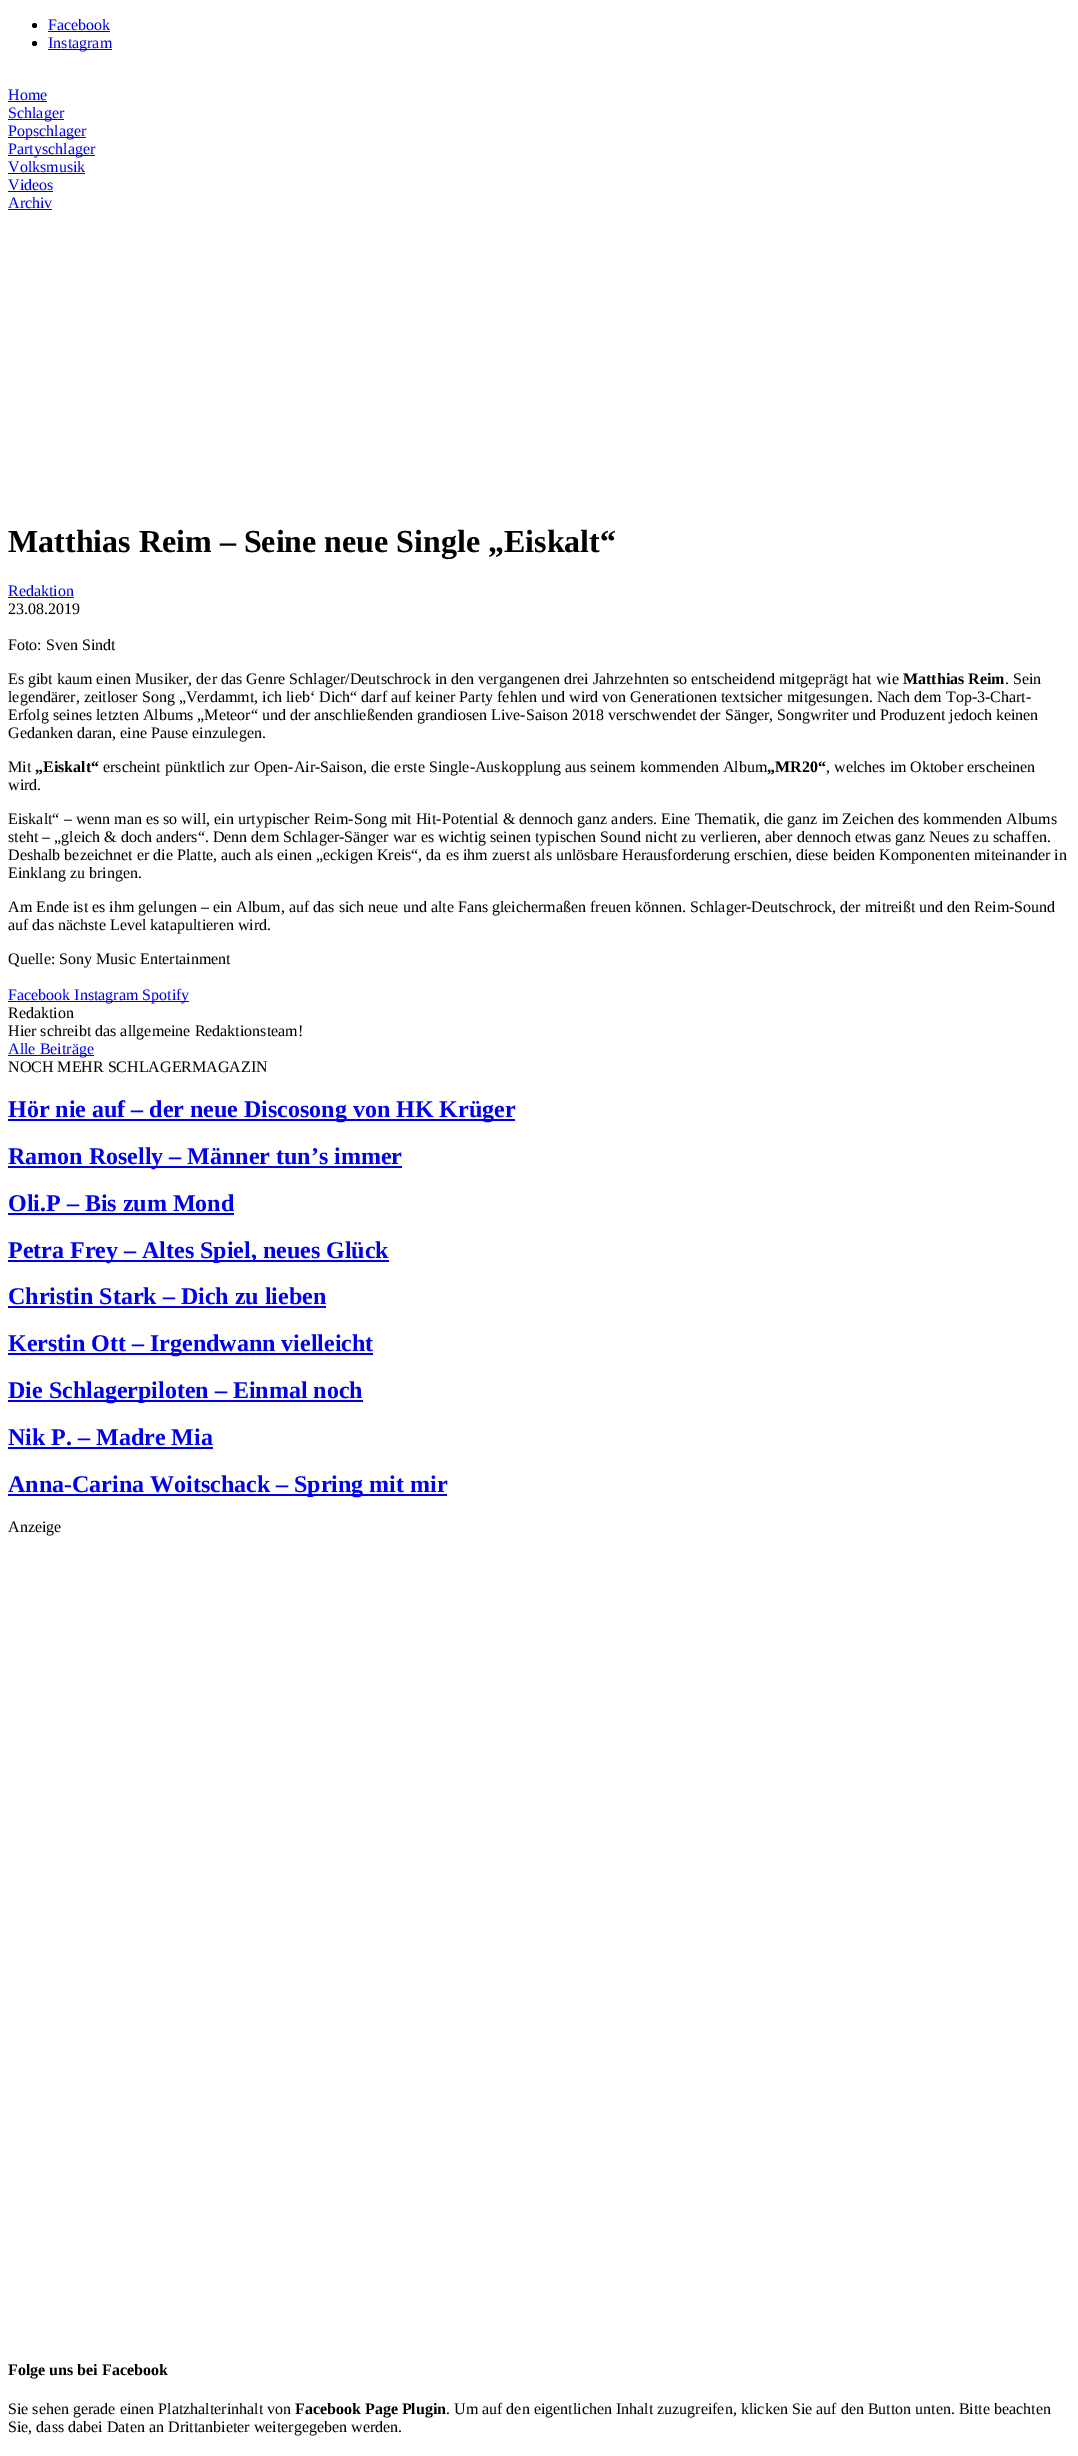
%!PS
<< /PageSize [1078 2456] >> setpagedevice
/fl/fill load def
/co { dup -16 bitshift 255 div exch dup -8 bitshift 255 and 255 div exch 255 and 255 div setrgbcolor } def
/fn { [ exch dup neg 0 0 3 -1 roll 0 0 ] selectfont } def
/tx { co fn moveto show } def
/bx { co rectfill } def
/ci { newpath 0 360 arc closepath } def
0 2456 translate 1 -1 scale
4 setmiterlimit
0 0 1078 2456 16#FFFFFF bx
16#000000 co
34.5 25.5 2.5 ci fl
48 31 62 1 16#0000EE bx
16#000000 co
34.5 43.5 2.5 ci fl
48 49 64 1 16#0000EE bx
8 101 39 1 16#0000EE bx
8 119 56 1 16#0000EE bx
8 137 78 1 16#0000EE bx
8 155 87 1 16#0000EE bx
8 173 77 1 16#0000EE bx
8 191 45 1 16#0000EE bx
8 209 44 1 16#0000EE bx
8 597 66 1 16#0000EE bx
8 1001 181 1 16#0000EE bx
8 1055 86 1 16#0000EE bx
8 1119 507 2 16#0000EE bx
8 1166 394 2 16#0000EE bx
8 1213 226 2 16#0000EE bx
8 1260 381 2 16#0000EE bx
8 1306 318 2 16#0000EE bx
8 1353 365 2 16#0000EE bx
8 1400 355 2 16#0000EE bx
8 1447 205 2 16#0000EE bx
8 1494 439 2 16#0000EE bx
(Facebook) 48 30 /LiberationSerif-Regular 16 16#0000EE tx
(Instagram) 48 48 /LiberationSerif-Regular 16 16#0000EE tx
(Home) 8 100 /LiberationSerif-Regular 16 16#0000EE tx
(Schlager) 8 118 /LiberationSerif-Regular 16 16#0000EE tx
(Popschlager) 8 136 /LiberationSerif-Regular 16 16#0000EE tx
(Partyschlager) 8 154 /LiberationSerif-Regular 16 16#0000EE tx
(Volksmusik) 8 172 /LiberationSerif-Regular 16 16#0000EE tx
(Videos) 8 190 /LiberationSerif-Regular 16 16#0000EE tx
(Archiv) 8 208 /LiberationSerif-Regular 16 16#0000EE tx
(Matthias Reim – Seine neue Single „Eiskalt“) 8 552 /LiberationSerif-Bold 32 16#000000 tx
(Redaktion) 8 596 /LiberationSerif-Regular 16 16#0000EE tx
(23.08.2019) 8 614 /LiberationSerif-Regular 16 16#000000 tx
(Foto: Sven Sindt) 8 650 /LiberationSerif-Regular 16 16#000000 tx
(Es gibt kaum einen Musiker, der das Genre Schlager/Deutschrock in den vergangenen drei Jahrzehnten so entscheidend mitgeprägt hat wie) 8 684 /LiberationSerif-Regular 16 16#000000 tx
(Matthias Reim) 903 684 /LiberationSerif-Bold 16 16#000000 tx
(. Sein) 1005 684 /LiberationSerif-Regular 16 16#000000 tx
(legendärer, zeitloser Song „Verdammt, ich lieb‘ Dich“ darf auf keiner Party fehlen und wird von Generationen textsicher mitgesungen. Nach dem Top-3-Chart-) 8 702 /LiberationSerif-Regular 16 16#000000 tx
(Erfolg seines letzten Albums „Meteor“ und der anschließenden grandiosen Live-Saison 2018 verschwendet der Sänger, Songwriter und Produzent jedoch keinen) 8 720 /LiberationSerif-Regular 16 16#000000 tx
(Gedanken daran, eine Pause einzulegen.) 8 738 /LiberationSerif-Regular 16 16#000000 tx
(Mit) 8 772 /LiberationSerif-Regular 16 16#000000 tx
(„Eiskalt“) 35 772 /LiberationSerif-Bold 16 16#000000 tx
(erscheint pünktlich zur Open-Air-Saison, die erste Single-Auskopplung aus seinem kommenden Album) 103 772 /LiberationSerif-Regular 16 16#000000 tx
(„MR20“) 767 772 /LiberationSerif-Bold 16 16#000000 tx
(, welches im Oktober erscheinen) 826 772 /LiberationSerif-Regular 16 16#000000 tx
(wird.) 8 790 /LiberationSerif-Regular 16 16#000000 tx
(Eiskalt“ – wenn man es so will, ein urtypischer Reim-Song mit Hit-Potential & dennoch ganz anders. Eine Thematik, die ganz im Zeichen des kommenden Albums) 8 824 /LiberationSerif-Regular 16 16#000000 tx
(steht – „gleich & doch anders“. Denn dem Schlager-Sänger war es wichtig seinen typischen Sound nicht zu verlieren, aber dennoch etwas ganz Neues zu schaffen.) 8 842 /LiberationSerif-Regular 16 16#000000 tx
(Deshalb bezeichnet er die Platte, auch als einen „eckigen Kreis“, da es ihm zuerst als unlösbare Herausforderung erschien, diese beiden Komponenten miteinander in) 8 860 /LiberationSerif-Regular 16 16#000000 tx
(Einklang zu bringen.) 8 878 /LiberationSerif-Regular 16 16#000000 tx
(Am Ende ist es ihm gelungen – ein Album, auf das sich neue und alte Fans gleichermaßen freuen können. Schlager-Deutschrock, der mitreißt und den Reim-Sound) 8 912 /LiberationSerif-Regular 16 16#000000 tx
(auf das nächste Level katapultieren wird.) 8 930 /LiberationSerif-Regular 16 16#000000 tx
(Quelle: Sony Music Entertainment) 8 964 /LiberationSerif-Regular 16 16#000000 tx
(Facebook Instagram Spotify) 8 1000 /LiberationSerif-Regular 16 16#0000EE tx
(Redaktion) 8 1018 /LiberationSerif-Regular 16 16#000000 tx
(Hier schreibt das allgemeine Redaktionsteam!) 8 1036 /LiberationSerif-Regular 16 16#000000 tx
(Alle Beiträge) 8 1054 /LiberationSerif-Regular 16 16#0000EE tx
(NOCH MEHR SCHLAGERMAGAZIN) 8 1072 /LiberationSerif-Regular 16 16#000000 tx
(Hör nie auf – der neue Discosong von HK Krüger) 8 1117 /LiberationSerif-Bold 24 16#0000EE tx
(Ramon Roselly – Männer tun’s immer) 8 1164 /LiberationSerif-Bold 24 16#0000EE tx
(Oli.P – Bis zum Mond) 8 1211 /LiberationSerif-Bold 24 16#0000EE tx
(Petra Frey – Altes Spiel, neues Glück) 8 1258 /LiberationSerif-Bold 24 16#0000EE tx
(Christin Stark – Dich zu lieben) 8 1304 /LiberationSerif-Bold 24 16#0000EE tx
(Kerstin Ott – Irgendwann vielleicht) 8 1351 /LiberationSerif-Bold 24 16#0000EE tx
(Die Schlagerpiloten – Einmal noch) 8 1398 /LiberationSerif-Bold 24 16#0000EE tx
(Nik P. – Madre Mia) 8 1445 /LiberationSerif-Bold 24 16#0000EE tx
(Anna-Carina Woitschack – Spring mit mir) 8 1492 /LiberationSerif-Bold 24 16#0000EE tx
(Anzeige) 8 1532 /LiberationSerif-Regular 16 16#000000 tx
(Folge uns bei Facebook) 8 2375 /LiberationSerif-Bold 16 16#000000 tx
(Sie sehen gerade einen Platzhalterinhalt von) 8 2414 /LiberationSerif-Regular 16 16#000000 tx
(Facebook Page Plugin) 295 2414 /LiberationSerif-Bold 16 16#000000 tx
(. Um auf den eigentlichen Inhalt zuzugreifen, klicken Sie auf den Button unten. Bitte beachten) 446 2414 /LiberationSerif-Regular 16 16#000000 tx
(Sie, dass dabei Daten an Drittanbieter weitergegeben werden.) 8 2432 /LiberationSerif-Regular 16 16#000000 tx
showpage
